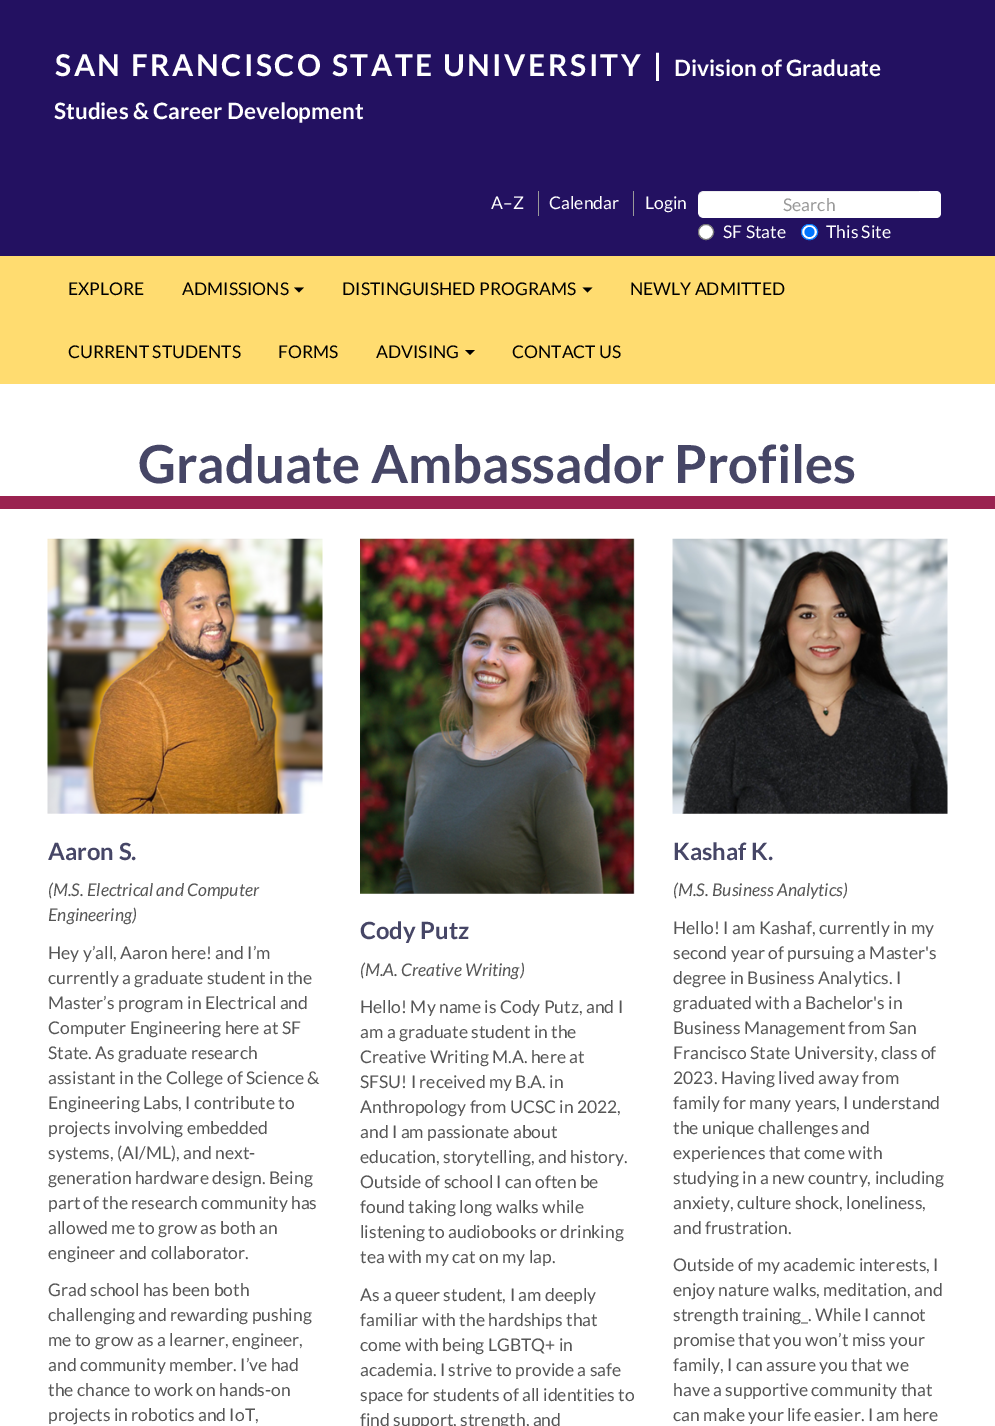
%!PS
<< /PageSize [995 1426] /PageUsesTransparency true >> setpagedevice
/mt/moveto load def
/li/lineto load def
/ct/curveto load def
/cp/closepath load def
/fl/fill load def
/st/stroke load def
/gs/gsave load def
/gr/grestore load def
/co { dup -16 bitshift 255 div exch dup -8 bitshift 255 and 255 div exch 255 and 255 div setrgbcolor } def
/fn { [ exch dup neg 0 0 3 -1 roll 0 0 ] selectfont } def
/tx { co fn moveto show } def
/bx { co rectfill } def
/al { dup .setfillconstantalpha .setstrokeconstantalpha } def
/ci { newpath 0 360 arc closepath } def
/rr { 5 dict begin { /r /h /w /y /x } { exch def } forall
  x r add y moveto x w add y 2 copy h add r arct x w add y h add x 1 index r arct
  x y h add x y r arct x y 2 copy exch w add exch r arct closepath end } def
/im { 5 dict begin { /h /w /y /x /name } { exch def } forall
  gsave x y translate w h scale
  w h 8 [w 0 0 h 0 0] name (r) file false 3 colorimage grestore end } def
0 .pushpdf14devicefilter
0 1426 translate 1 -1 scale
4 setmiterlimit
0 0 995 1426 16#FFFFFF bx
0 0 995 256 16#231161 bx
538 191 1 25 16#999999 bx
633 191 1 25 16#999999 bx
16#FFFFFF co
704 191 mt 920 191 li 920 218 li 704 218 li 700.5 218 698 215.5 698 212 ct 698 197 li 698 193.5 700.5 191 704 191 ct cp fl
0.07 al
16#000000 co
704 192 mt 920 192 li 920 191 li 704 191 li 701 191 698 194 698 197 ct 698 199 li 698 195 700 192 704 192 ct cp fl
1 al
16#FFFFFF co
919 191 mt 936 191 li 939 191 941 193 941 196 ct 941 213 li 941 216 939 218 936 218 ct 919 218 li cp fl
706 232 7.5 ci gs fl gr
16#767676 co
st
16#FFFFFF co
801.5 224.5 16 15 7.5 rr gs fl gr
16#0075FF co
st
809.5 232 5 ci fl
0 256 995 128 16#FFDC70 bx
16#000000 co
294 287.5 mt 304 287.5 li 299 292.5 li cp fl
582.5 287.5 mt 592.5 287.5 li 587.5 292.5 li cp fl
465 350 mt 475 350 li 470 355 li cp fl
0 496 995 13 16#9A2250 bx
(media/1.raw) 47 538 276 276 im
(media/2.raw) 360 538 275 356 im
(media/3.raw) 672 538 276 276 im
/Lato-Bold 30 fn
16#FFFFFF co
55 76 mt 2.5 0 (SAN FRANCISCO STATE UNIVERSITY) ashow
653 76 mt 2.5 0 (|) ashow
(Division of Graduate) 674 76 /Lato-Bold 22.5 16#FFFFFF tx
(Studies & Career Development) 54 119 /Lato-Bold 22.5 16#FFFFFF tx
(A–Z) 491 209 /Lato-Regular 17.5 16#FFFFFF tx
(Calendar) 549 209 /Lato-Regular 17.5 16#FFFFFF tx
(Login) 645 209 /Lato-Regular 17.5 16#FFFFFF tx
(Search) 783 211 /Lato-Regular 17.5 16#999999 tx
(SF State) 723 238 /Lato-Regular 17.5 16#FFFFFF tx
(This Site) 826 238 /Lato-Regular 17.5 16#FFFFFF tx
(EXPLORE) 68 295 /Lato-Regular 17.5 16#000000 tx
(ADMISSIONS) 182 295 /Lato-Regular 17.5 16#000000 tx
(DISTINGUISHED PROGRAMS) 342 295 /Lato-Regular 17.5 16#000000 tx
(NEWLY ADMITTED) 630 295 /Lato-Regular 17.5 16#000000 tx
(CURRENT STUDENTS) 68 358 /Lato-Regular 17.5 16#000000 tx
(FORMS) 278 358 /Lato-Regular 17.5 16#000000 tx
(ADVISING) 376 358 /Lato-Regular 17.5 16#000000 tx
(CONTACT US) 512 358 /Lato-Regular 17.5 16#000000 tx
(Graduate Ambassador Profiles) 138 483 /Lato-Bold 52.5 16#464666 tx
(Aaron S.) 48 860 /Lato-Bold 23.75 16#464666 tx
(\(M.S. Electrical and Computer) 48 896 /Lato-Italic 17.5 16#565656 tx
(Engineering\)) 48 921 /Lato-Italic 17.5 16#565656 tx
(Hey y’all, Aaron here! and I’m) 48 959 /Lato-Regular 17.5 16#565656 tx
(currently a graduate student in the) 48 984 /Lato-Regular 17.5 16#565656 tx
(Master’s program in Electrical and) 48 1009 /Lato-Regular 17.5 16#565656 tx
(Computer Engineering here at SF) 48 1034 /Lato-Regular 17.5 16#565656 tx
(State. As graduate research) 48 1059 /Lato-Regular 17.5 16#565656 tx
(assistant in the College of Science &) 48 1084 /Lato-Regular 17.5 16#565656 tx
(Engineering Labs, I contribute to) 48 1109 /Lato-Regular 17.5 16#565656 tx
(projects involving embedded) 48 1134 /Lato-Regular 17.5 16#565656 tx
(systems, \(AI/ML\), and next-) 48 1159 /Lato-Regular 17.5 16#565656 tx
(generation hardware design. Being) 48 1184 /Lato-Regular 17.5 16#565656 tx
(part of the research community has) 48 1209 /Lato-Regular 17.5 16#565656 tx
(allowed me to grow as both an) 48 1234 /Lato-Regular 17.5 16#565656 tx
(engineer and collaborator.) 48 1259 /Lato-Regular 17.5 16#565656 tx
(Grad school has been both) 48 1296 /Lato-Regular 17.5 16#565656 tx
(challenging and rewarding pushing) 48 1321 /Lato-Regular 17.5 16#565656 tx
(me to grow as a learner, engineer,) 48 1346 /Lato-Regular 17.5 16#565656 tx
(and community member. I’ve had) 48 1371 /Lato-Regular 17.5 16#565656 tx
(the chance to work on hands-on) 48 1396 /Lato-Regular 17.5 16#565656 tx
(projects in robotics and IoT,) 48 1421 /Lato-Regular 17.5 16#565656 tx
(Cody Putz) 360 939 /Lato-Bold 23.75 16#464666 tx
(\(M.A. Creative Writing\)) 360 976 /Lato-Italic 17.5 16#565656 tx
(Hello! My name is Cody Putz, and I) 360 1013 /Lato-Regular 17.5 16#565656 tx
(am a graduate student in the) 360 1038 /Lato-Regular 17.5 16#565656 tx
(Creative Writing M.A. here at) 360 1063 /Lato-Regular 17.5 16#565656 tx
(SFSU! I received my B.A. in) 360 1088 /Lato-Regular 17.5 16#565656 tx
(Anthropology from UCSC in 2022,) 360 1113 /Lato-Regular 17.5 16#565656 tx
(and I am passionate about) 360 1138 /Lato-Regular 17.5 16#565656 tx
(education, storytelling, and history.) 360 1163 /Lato-Regular 17.5 16#565656 tx
(Outside of school I can often be) 360 1188 /Lato-Regular 17.5 16#565656 tx
(found taking long walks while) 360 1213 /Lato-Regular 17.5 16#565656 tx
(listening to audiobooks or drinking) 360 1238 /Lato-Regular 17.5 16#565656 tx
(tea with my cat on my lap.) 360 1263 /Lato-Regular 17.5 16#565656 tx
(As a queer student, I am deeply) 360 1301 /Lato-Regular 17.5 16#565656 tx
(familiar with the hardships that) 360 1326 /Lato-Regular 17.5 16#565656 tx
(come with being LGBTQ+ in) 360 1351 /Lato-Regular 17.5 16#565656 tx
(academia. I strive to provide a safe) 360 1376 /Lato-Regular 17.5 16#565656 tx
(space for students of all identities to) 360 1401 /Lato-Regular 17.5 16#565656 tx
(find support, strength, and) 360 1426 /Lato-Regular 17.5 16#565656 tx
(Kashaf K.) 673 860 /Lato-Bold 23.75 16#464666 tx
(\(M.S. Business Analytics\)) 673 896 /Lato-Italic 17.5 16#565656 tx
(Hello! I am Kashaf, currently in my) 673 934 /Lato-Regular 17.5 16#565656 tx
(second year of pursuing a Master's) 673 959 /Lato-Regular 17.5 16#565656 tx
(degree in Business Analytics. I) 673 984 /Lato-Regular 17.5 16#565656 tx
(graduated with a Bachelor's in) 673 1009 /Lato-Regular 17.5 16#565656 tx
(Business Management from San) 673 1034 /Lato-Regular 17.5 16#565656 tx
(Francisco State University, class of) 673 1059 /Lato-Regular 17.5 16#565656 tx
(2023. Having lived away from) 673 1084 /Lato-Regular 17.5 16#565656 tx
(family for many years, I understand) 673 1109 /Lato-Regular 17.5 16#565656 tx
(the unique challenges and) 673 1134 /Lato-Regular 17.5 16#565656 tx
(experiences that come with) 673 1159 /Lato-Regular 17.5 16#565656 tx
(studying in a new country, including) 673 1184 /Lato-Regular 17.5 16#565656 tx
(anxiety, culture shock, loneliness,) 673 1209 /Lato-Regular 17.5 16#565656 tx
(and frustration.) 673 1234 /Lato-Regular 17.5 16#565656 tx
(Outside of my academic interests, I) 673 1271 /Lato-Regular 17.5 16#565656 tx
(enjoy nature walks, meditation, and) 673 1296 /Lato-Regular 17.5 16#565656 tx
(strength training_. While I cannot) 673 1321 /Lato-Regular 17.5 16#565656 tx
(promise that you won’t miss your) 673 1346 /Lato-Regular 17.5 16#565656 tx
(family, I can assure you that we) 673 1371 /Lato-Regular 17.5 16#565656 tx
(have a supportive community that) 673 1396 /Lato-Regular 17.5 16#565656 tx
(can make your life easier. I am here) 673 1421 /Lato-Regular 17.5 16#565656 tx
.poppdf14devicefilter showpage
